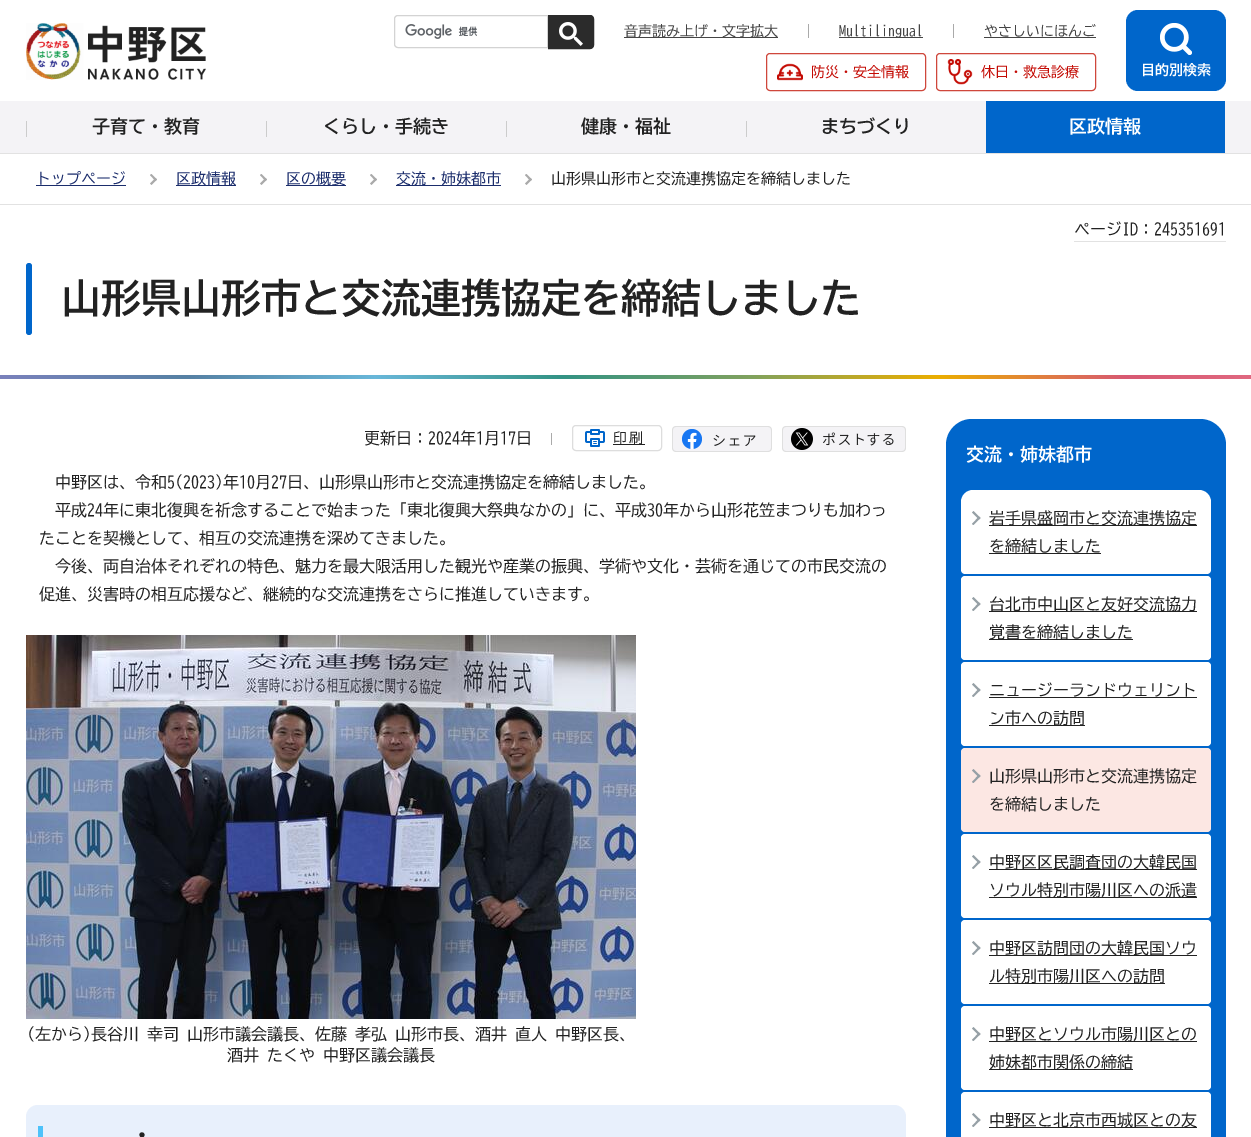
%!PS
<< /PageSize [1251 1137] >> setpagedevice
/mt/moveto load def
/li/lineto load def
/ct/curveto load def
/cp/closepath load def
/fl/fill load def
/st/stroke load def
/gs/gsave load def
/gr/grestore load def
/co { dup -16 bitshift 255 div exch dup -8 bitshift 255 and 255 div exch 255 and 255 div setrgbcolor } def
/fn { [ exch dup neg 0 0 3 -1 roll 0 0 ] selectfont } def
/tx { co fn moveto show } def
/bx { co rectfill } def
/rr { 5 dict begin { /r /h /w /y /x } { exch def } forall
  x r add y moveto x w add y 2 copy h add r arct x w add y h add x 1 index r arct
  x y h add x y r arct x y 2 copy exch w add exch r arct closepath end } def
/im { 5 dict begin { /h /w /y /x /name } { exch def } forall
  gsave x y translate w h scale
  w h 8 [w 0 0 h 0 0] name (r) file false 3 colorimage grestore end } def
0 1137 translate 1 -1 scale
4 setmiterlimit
0 0 1251 1137 16#FFFFFF bx
(media/1.raw) 26 23 180 57 im
16#D3D3D3 co
398 15.5 mt 547.5 15.5 li 547.5 47.5 li 398 47.5 li 396 47.5 394.5 46 394.5 44 ct 394.5 19 li 394.5 17 396 15.5 398 15.5 ct cp st
(media/2.raw) 405 24 73 15 im
16#2B2B2B co
548.5 15.5 mt 590 15.5 li 592 15.5 593.5 17 593.5 19 ct 593.5 45 li 593.5 47 592 48.5 590 48.5 ct 548.5 48.5 li cp gs fl gr
st
(media/3.raw) 559 22 24 24 im
808 24 1 14 16#AAAAAA bx
624 37 154 1 16#444444 bx
953 24 1 14 16#AAAAAA bx
839 37 84 1 16#444444 bx
984 37 112 1 16#444444 bx
16#CF473C co
766.5 53.5 159 37 3.5 rr st
(media/4.raw) 777 63 26 18 im
936.5 53.5 159 37 3.5 rr st
(media/5.raw) 947 59 26 26 im
16#0066CB co
1126 10 100 81 12 rr fl
(media/6.raw) 1160 23 32 32 im
0 101 1251 52 16#F4F3F6 bx
26 121 1 16 16#CCCCCC bx
266 121 1 16 16#CCCCCC bx
506 121 1 16 16#CCCCCC bx
746 121 1 16 16#CCCCCC bx
986 101 239 52 16#0066CB bx
0 153 1251 1 16#E2E2E2 bx
0 204 1251 1 16#E2E2E2 bx
36 185 90 1 16#1B2D6C bx
16#AAAAAA co
151.5 174 mt 157 179.5 li 155.5 181 li 150 175 li cp fl
155.5 178 mt 157 179.5 li 151.5 185 li 150 183.5 li cp fl
176 185 60 1 16#1B2D6C bx
16#AAAAAA co
261.5 174 mt 267 179.5 li 265.5 181 li 260 175 li cp fl
265.5 178 mt 267 179.5 li 261.5 185 li 260 183.5 li cp fl
286 185 60 1 16#1B2D6C bx
16#AAAAAA co
371.5 174 mt 377 179.5 li 375.5 181 li 370 175 li cp fl
375.5 178 mt 377 179.5 li 371.5 185 li 370 183.5 li cp fl
396 185 105 1 16#1B2D6C bx
16#AAAAAA co
526.5 174 mt 532 179.5 li 530.5 181 li 525 175 li cp fl
530.5 178 mt 532 179.5 li 526.5 185 li 525 183.5 li cp fl
1074 241 152 1 16#E2E2E2 bx
16#0066CB co
26 263 6 72 3 rr fl
gs 0 375 mt 1251 375 li 1251 379 li 0 379 li cp clip newpath
<< /ShadingType 2 /ColorSpace /DeviceRGB /Coords [0 377 1251 377] /Extend [true true] /Function << /FunctionType 3 /Domain [0 1] /Functions [<< /FunctionType 2 /Domain [0 1] /C0 [.478 .51 .737] /C1 [.337 .506 .643] /N 1 >> << /FunctionType 2 /Domain [0 1] /C0 [.337 .506 .643] /C1 [.408 .718 .851] /N 1 >> << /FunctionType 2 /Domain [0 1] /C0 [.408 .718 .851] /C1 [.2 .576 .518] /N 1 >> << /FunctionType 2 /Domain [0 1] /C0 [.2 .576 .518] /C1 [.502 .635 .369] /N 1 >> << /FunctionType 2 /Domain [0 1] /C0 [.502 .635 .369] /C1 [.922 .682 0] /N 1 >> << /FunctionType 2 /Domain [0 1] /C0 [.922 .682 0] /C1 [.847 .349 .447] /N 1 >> << /FunctionType 2 /Domain [0 1] /C0 [.847 .349 .447] /C1 [.878 .408 .502] /N 1 >>] /Bounds [.15 .3 .45 .6 .75 .9] /Encode [0 1 0 1 0 1 0 1 0 1 0 1 0 1] >> >> shfill gr
551 433 1 12 16#AAAAAA bx
(media/7.raw) 585 429 20 18 im
16#DDDDDD co
572.5 425.5 89 25 3.5 rr st
613 444 32 1 16#222222 bx
(media/8.raw) 672 426 100 26 im
(media/9.raw) 782 426 124 26 im
(media/10.raw) 26 635 610 384 im
16#E8F0FC co
26 1105 880 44 12 rr fl
38 1126 5 11 16#4DC2FA bx
16#0066CB co
946 419 280 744 26 rr fl
16#FFFFFF co
973 490 mt 1199 490 li 1205.5 490 1211 495.5 1211 502 ct 1211 570 li 1211 572 1209 574 1207 574 ct 965 574 li 963 574 961 572 961 570 ct 961 502 li 961 495.5 966.5 490 973 490 ct cp fl
16#96A0A6 co
973.5 511 mt 980.5 518 li 979 519.5 li 972 512.5 li cp fl
979 516.5 mt 980.5 518 li 973.5 525 li 972 524 li cp fl
989 525 208 1 16#222222 bx
989 553 112 1 16#222222 bx
16#FFFFFF co
961 576 250 84 4 rr fl
16#96A0A6 co
973.5 597 mt 980.5 604 li 979 605.5 li 972 598.5 li cp fl
979 602.5 mt 980.5 604 li 973.5 611 li 972 610 li cp fl
989 611 208 1 16#222222 bx
989 639 144 1 16#222222 bx
16#FFFFFF co
961 662 250 84 4 rr fl
16#96A0A6 co
973.5 683 mt 980.5 690 li 979 691.5 li 972 684.5 li cp fl
979 688.5 mt 980.5 690 li 973.5 697 li 972 696 li cp fl
989 697 208 1 16#222222 bx
989 725 96 1 16#222222 bx
16#FCE7E3 co
961 748 250 84 4 rr fl
16#96A0A6 co
973.5 769 mt 980.5 776 li 979 777.5 li 972 770.5 li cp fl
979 774.5 mt 980.5 776 li 973.5 783 li 972 782 li cp fl
16#FFFFFF co
961 834 250 84 4 rr fl
16#96A0A6 co
973.5 855 mt 980.5 862 li 979 863.5 li 972 856.5 li cp fl
979 860.5 mt 980.5 862 li 973.5 869 li 972 868 li cp fl
989 869 208 1 16#222222 bx
989 897 208 1 16#222222 bx
16#FFFFFF co
961 920 250 84 4 rr fl
16#96A0A6 co
973.5 941 mt 980.5 948 li 979 949.5 li 972 942.5 li cp fl
979 946.5 mt 980.5 948 li 973.5 955 li 972 954 li cp fl
989 955 208 1 16#222222 bx
989 983 176 1 16#222222 bx
16#FFFFFF co
961 1006 250 84 4 rr fl
16#96A0A6 co
973.5 1027 mt 980.5 1034 li 979 1035.5 li 972 1028.5 li cp fl
979 1032.5 mt 980.5 1034 li 973.5 1041 li 972 1040 li cp fl
989 1041 208 1 16#222222 bx
989 1069 144 1 16#222222 bx
16#FFFFFF co
961 1092 250 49 4 rr fl
16#96A0A6 co
973.5 1113 mt 980.5 1120 li 979 1121.5 li 972 1114.5 li cp fl
979 1118.5 mt 980.5 1120 li 973.5 1127 li 972 1126 li cp fl
989 1127 208 1 16#222222 bx
(音声読み上げ・文字拡大) 624 36 /BIZUDGothic-Regular 14 16#444444 tx
(Multilingual) 839 36 /BIZUDGothic-Regular 14 16#444444 tx
(やさしいにほんご) 984 36 /BIZUDGothic-Regular 14 16#444444 tx
(防災・安全情報) 811 77 /BIZUDGothic-Regular 14 16#C40A03 tx
(休日・救急診療) 981 77 /BIZUDGothic-Regular 14 16#C40A03 tx
(目的別検索) 1141 75 /BIZUDGothic-Bold 14 16#FFFFFF tx
(子育て・教育) 92 133 /BIZUDGothic-Bold 18 16#222222 tx
(くらし・手続き) 323 133 /BIZUDGothic-Bold 18 16#222222 tx
(健康・福祉) 581 133 /BIZUDGothic-Bold 18 16#222222 tx
(まちづくり) 821 133 /BIZUDGothic-Bold 18 16#222222 tx
(区政情報) 1069 133 /BIZUDGothic-Bold 18 16#FFFFFF tx
(トップページ) 36 184 /BIZUDGothic-Regular 15 16#1B2D6C tx
(区政情報) 176 184 /BIZUDGothic-Regular 15 16#1B2D6C tx
(区の概要) 286 184 /BIZUDGothic-Regular 15 16#1B2D6C tx
(交流・姉妹都市) 396 184 /BIZUDGothic-Regular 15 16#1B2D6C tx
(山形県山形市と交流連携協定を締結しました) 551 184 /BIZUDGothic-Regular 15 16#222222 tx
(ページID：245351691) 1074 235 /BIZUDGothic-Regular 16 16#222222 tx
(山形県山形市と交流連携協定を締結しました) 61 313 /BIZUDGothic-Bold 40 16#222222 tx
(更新日：2024年1月17日) 364 444 /BIZUDGothic-Regular 16 16#222222 tx
/BIZUDGothic-Regular 14 fn
613 443 mt 2 0 (印刷) ashow
(中野区は、令和5\(2023\)年10月27日、山形県山形市と交流連携協定を締結しました。) 55 488 /BIZUDGothic-Regular 16 16#222222 tx
(平成24年に東北復興を祈念することで始まった「東北復興大祭典なかの」に、平成30年から山形花笠まつりも加わっ) 55 516 /BIZUDGothic-Regular 16 16#222222 tx
(たことを契機として、相互の交流連携を深めてきました。) 39 544 /BIZUDGothic-Regular 16 16#222222 tx
(今後、両自治体それぞれの特色、魅力を最大限活用した観光や産業の振興、学術や文化・芸術を通じての市民交流の) 55 572 /BIZUDGothic-Regular 16 16#222222 tx
(促進、災害時の相互応援など、継続的な交流連携をさらに推進していきます。) 39 600 /BIZUDGothic-Regular 16 16#222222 tx
(\(左から\)長谷川 幸司 山形市議会議長、佐藤 孝弘 山形市長、酒井 直人 中野区長、) 27 1040 /BIZUDGothic-Regular 16 16#222222 tx
(酒井 たくや 中野区議会議長) 227 1061 /BIZUDGothic-Regular 16 16#222222 tx
(・) 130 1144 /BIZUDGothic-Bold 24 16#222222 tx
(交流・姉妹都市) 966 461 /BIZUDGothic-Bold 18 16#FFFFFF tx
(岩手県盛岡市と交流連携協定) 989 524 /BIZUDGothic-Regular 16 16#222222 tx
(を締結しました) 989 552 /BIZUDGothic-Regular 16 16#222222 tx
(台北市中山区と友好交流協力) 989 610 /BIZUDGothic-Regular 16 16#222222 tx
(覚書を締結しました) 989 638 /BIZUDGothic-Regular 16 16#222222 tx
(ニュージーランドウェリント) 989 696 /BIZUDGothic-Regular 16 16#222222 tx
(ン市への訪問) 989 724 /BIZUDGothic-Regular 16 16#222222 tx
(山形県山形市と交流連携協定) 989 782 /BIZUDGothic-Regular 16 16#222222 tx
(を締結しました) 989 810 /BIZUDGothic-Regular 16 16#222222 tx
(中野区区民調査団の大韓民国) 989 868 /BIZUDGothic-Regular 16 16#222222 tx
(ソウル特別市陽川区への派遣) 989 896 /BIZUDGothic-Regular 16 16#222222 tx
(中野区訪問団の大韓民国ソウ) 989 954 /BIZUDGothic-Regular 16 16#222222 tx
(ル特別市陽川区への訪問) 989 982 /BIZUDGothic-Regular 16 16#222222 tx
(中野区とソウル市陽川区との) 989 1040 /BIZUDGothic-Regular 16 16#222222 tx
(姉妹都市関係の締結) 989 1068 /BIZUDGothic-Regular 16 16#222222 tx
(中野区と北京市西城区との友) 989 1126 /BIZUDGothic-Regular 16 16#222222 tx
showpage
